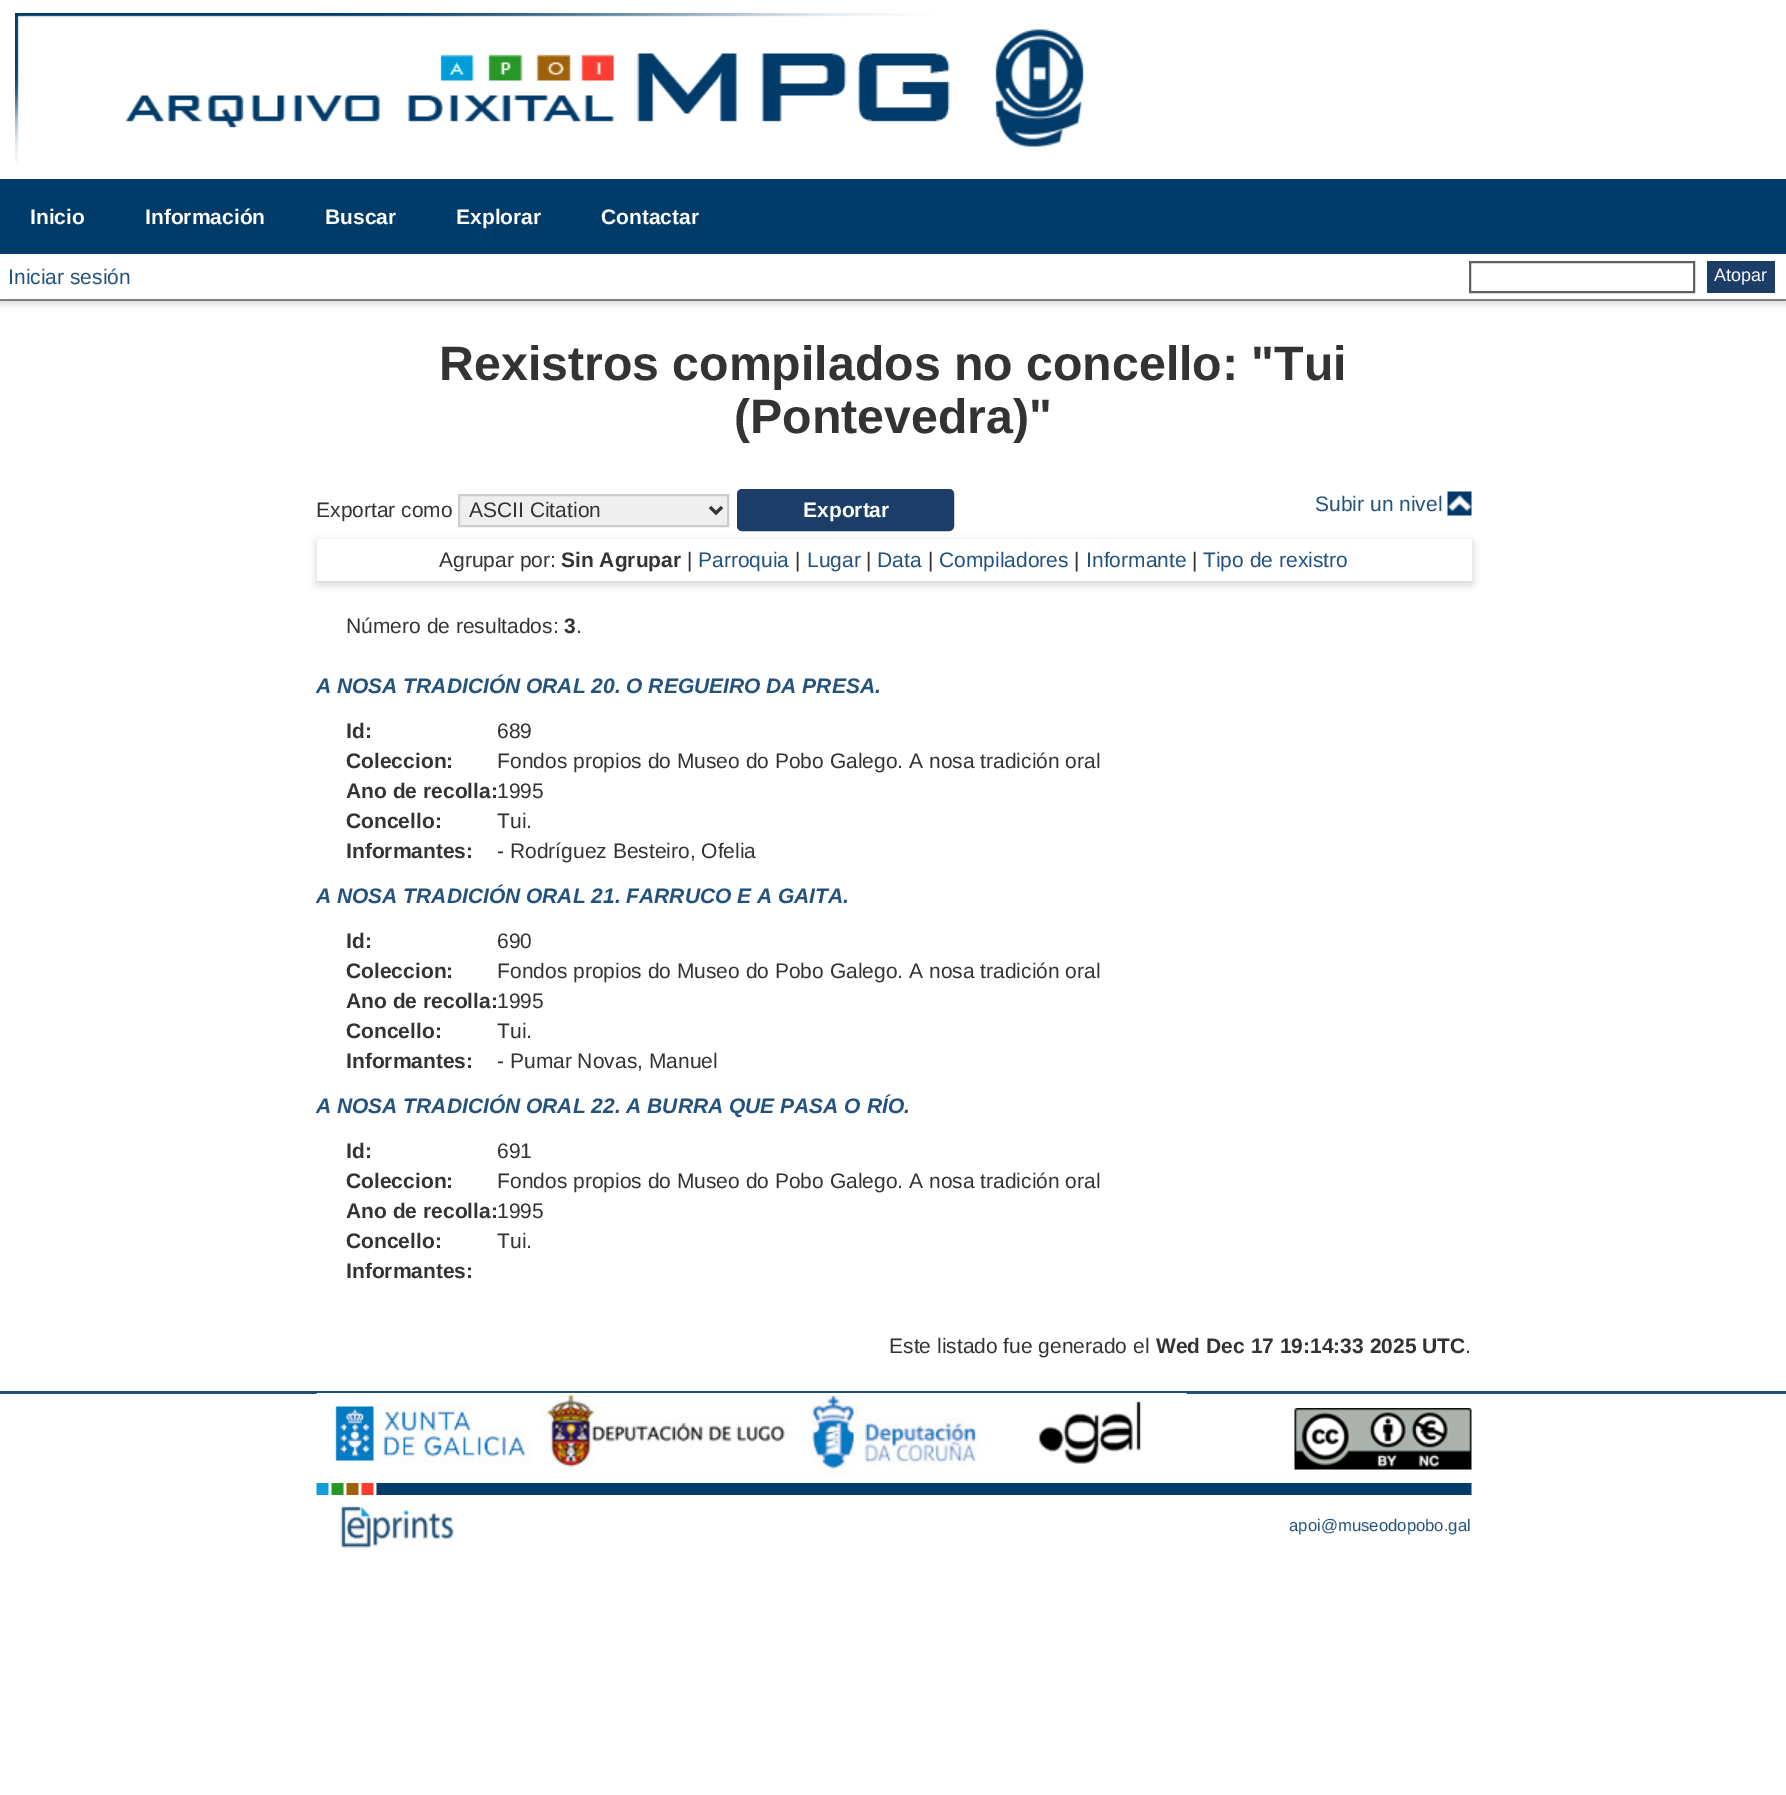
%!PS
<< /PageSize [1786 1795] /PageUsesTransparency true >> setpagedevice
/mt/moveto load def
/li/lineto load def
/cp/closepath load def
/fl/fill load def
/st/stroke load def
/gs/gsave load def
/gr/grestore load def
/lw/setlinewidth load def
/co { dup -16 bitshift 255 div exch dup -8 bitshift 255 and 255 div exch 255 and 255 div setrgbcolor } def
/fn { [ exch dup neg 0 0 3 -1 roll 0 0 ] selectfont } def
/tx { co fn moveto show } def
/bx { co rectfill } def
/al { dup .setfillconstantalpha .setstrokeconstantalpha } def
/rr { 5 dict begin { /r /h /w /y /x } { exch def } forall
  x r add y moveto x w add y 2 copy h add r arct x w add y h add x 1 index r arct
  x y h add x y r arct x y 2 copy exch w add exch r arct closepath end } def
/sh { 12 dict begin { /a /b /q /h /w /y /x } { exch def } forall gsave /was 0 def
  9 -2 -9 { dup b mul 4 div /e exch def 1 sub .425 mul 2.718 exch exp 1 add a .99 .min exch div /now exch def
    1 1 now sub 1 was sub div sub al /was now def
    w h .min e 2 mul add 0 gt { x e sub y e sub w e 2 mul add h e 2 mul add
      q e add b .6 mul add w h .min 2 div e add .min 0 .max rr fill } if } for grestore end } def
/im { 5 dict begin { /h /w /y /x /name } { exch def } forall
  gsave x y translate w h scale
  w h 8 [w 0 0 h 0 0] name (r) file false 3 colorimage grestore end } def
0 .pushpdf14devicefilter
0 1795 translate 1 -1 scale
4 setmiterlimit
0 0 1786 1795 16#FFFFFF bx
(media/1.raw) 15 13 1069 150 im
0 179 1786 75 16#003B6A bx
gs
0 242 mt 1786 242 li 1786 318 li 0 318 li cp 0 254 mt 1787 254 li 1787 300 li 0 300 li cp eoclip newpath
16#646464 co
0 257 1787 46 0 4.5 .3 sh
gr
0 299 1786 2 16#808080 bx
16#606060 co
2 lw
1470 262 224 30 rectstroke
1707 261 68 32 16#1C3D68 bx
16#EFEFEF co
459 495 mt 728 495 li 728 526 li 459 526 li cp gs fl gr
16#CCCCCC co
st
16#333333 co
3 lw
710 507 mt 716 513 li 722 507 li st
16#646464 co
317 542 1155 42 0 4.5 .3 sh
16#1C3D68 co
738.5 490.5 214 39 3.5 rr gs fl gr
st
(media/2.raw) 1447 491 25 25 im
317 539 1155 42 16#FFFFFF bx
0 1391 1786 3 16#204F76 bx
(media/3.raw) 316 1393 871 84 im
(media/4.raw) 1294 1408 178 62 im
(media/5.raw) 316 1483 1156 12 im
(media/6.raw) 339 1506 115 43 im
(Inicio) 30 224 /LiberationSans-Bold 21 16#FFFFFF tx
(Información) 145 224 /LiberationSans-Bold 21 16#FFFFFF tx
(Buscar) 325 224 /LiberationSans-Bold 21 16#FFFFFF tx
(Explorar) 456 224 /LiberationSans-Bold 21 16#FFFFFF tx
(Contactar) 601 224 /LiberationSans-Bold 21 16#FFFFFF tx
(Iniciar sesión) 8 284 /LiberationSans-Regular 21 16#23527C tx
(Atopar) 1714 281 /LiberationSans-Regular 18 16#FFFFFF tx
(Rexistros compilados no concello: "Tui) 439 380 /LiberationSans-Bold 48.25 16#333333 tx
(\(Pontevedra\)") 734 433 /LiberationSans-Bold 48.25 16#333333 tx
(Exportar como) 316 517 /LiberationSans-Regular 21 16#333333 tx
(ASCII Citation) 469 517 /LiberationSans-Regular 21 16#333333 tx
(Exportar) 803 517 /LiberationSans-Bold 21 16#FFFFFF tx
(Subir un nivel) 1315 511 /LiberationSans-Regular 21 16#23527C tx
(Agrupar por:) 439 567 /LiberationSans-Regular 21 16#333333 tx
(Sin Agrupar) 561 567 /LiberationSans-Bold 21 16#333333 tx
(|) 687 567 /LiberationSans-Regular 21 16#333333 tx
(Parroquia) 698 567 /LiberationSans-Regular 21 16#23527C tx
(|) 795 567 /LiberationSans-Regular 21 16#333333 tx
(Lugar) 807 567 /LiberationSans-Regular 21 16#23527C tx
(|) 866 567 /LiberationSans-Regular 21 16#333333 tx
(Data) 877 567 /LiberationSans-Regular 21 16#23527C tx
(|) 928 567 /LiberationSans-Regular 21 16#333333 tx
(Compiladores) 939 567 /LiberationSans-Regular 21 16#23527C tx
(|) 1074 567 /LiberationSans-Regular 21 16#333333 tx
(Informante) 1086 567 /LiberationSans-Regular 21 16#23527C tx
(|) 1192 567 /LiberationSans-Regular 21 16#333333 tx
(Tipo de rexistro) 1203 567 /LiberationSans-Regular 21 16#23527C tx
(Número de resultados:) 346 633 /LiberationSans-Regular 21 16#333333 tx
(3) 564 633 /LiberationSans-Bold 21 16#333333 tx
(.) 576 633 /LiberationSans-Regular 21 16#333333 tx
(A NOSA TRADICIÓN ORAL 20. O REGUEIRO DA PRESA.) 316 693 /LiberationSans-BoldItalic 21 16#23527C tx
(Id:) 346 738 /LiberationSans-Bold 21 16#333333 tx
(689) 497 738 /LiberationSans-Regular 21 16#333333 tx
(Coleccion:) 346 768 /LiberationSans-Bold 21 16#333333 tx
(Fondos propios do Museo do Pobo Galego. A nosa tradición oral) 497 768 /LiberationSans-Regular 21 16#333333 tx
(Ano de recolla:) 346 798 /LiberationSans-Bold 21 16#333333 tx
(1995) 497 798 /LiberationSans-Regular 21 16#333333 tx
(Concello:) 346 828 /LiberationSans-Bold 21 16#333333 tx
(Tui.) 497 828 /LiberationSans-Regular 21 16#333333 tx
(Informantes:) 346 858 /LiberationSans-Bold 21 16#333333 tx
(- Rodríguez Besteiro, Ofelia) 497 858 /LiberationSans-Regular 21 16#333333 tx
(A NOSA TRADICIÓN ORAL 21. FARRUCO E A GAITA.) 316 903 /LiberationSans-BoldItalic 21 16#23527C tx
(Id:) 346 948 /LiberationSans-Bold 21 16#333333 tx
(690) 497 948 /LiberationSans-Regular 21 16#333333 tx
(Coleccion:) 346 978 /LiberationSans-Bold 21 16#333333 tx
(Fondos propios do Museo do Pobo Galego. A nosa tradición oral) 497 978 /LiberationSans-Regular 21 16#333333 tx
(Ano de recolla:) 346 1008 /LiberationSans-Bold 21 16#333333 tx
(1995) 497 1008 /LiberationSans-Regular 21 16#333333 tx
(Concello:) 346 1038 /LiberationSans-Bold 21 16#333333 tx
(Tui.) 497 1038 /LiberationSans-Regular 21 16#333333 tx
(Informantes:) 346 1068 /LiberationSans-Bold 21 16#333333 tx
(- Pumar Novas, Manuel) 497 1068 /LiberationSans-Regular 21 16#333333 tx
(A NOSA TRADICIÓN ORAL 22. A BURRA QUE PASA O RÍO.) 316 1113 /LiberationSans-BoldItalic 21 16#23527C tx
(Id:) 346 1158 /LiberationSans-Bold 21 16#333333 tx
(691) 497 1158 /LiberationSans-Regular 21 16#333333 tx
(Coleccion:) 346 1188 /LiberationSans-Bold 21 16#333333 tx
(Fondos propios do Museo do Pobo Galego. A nosa tradición oral) 497 1188 /LiberationSans-Regular 21 16#333333 tx
(Ano de recolla:) 346 1218 /LiberationSans-Bold 21 16#333333 tx
(1995) 497 1218 /LiberationSans-Regular 21 16#333333 tx
(Concello:) 346 1248 /LiberationSans-Bold 21 16#333333 tx
(Tui.) 497 1248 /LiberationSans-Regular 21 16#333333 tx
(Informantes:) 346 1278 /LiberationSans-Bold 21 16#333333 tx
(Este listado fue generado el) 889 1353 /LiberationSans-Regular 21 16#333333 tx
(Wed Dec 17 19:14:33 2025 UTC) 1156 1353 /LiberationSans-Bold 21 16#333333 tx
(.) 1465 1353 /LiberationSans-Regular 21 16#333333 tx
(apoi@museodopobo.gal) 1289 1531 /LiberationSans-Regular 16.75 16#23527C tx
.poppdf14devicefilter showpage
